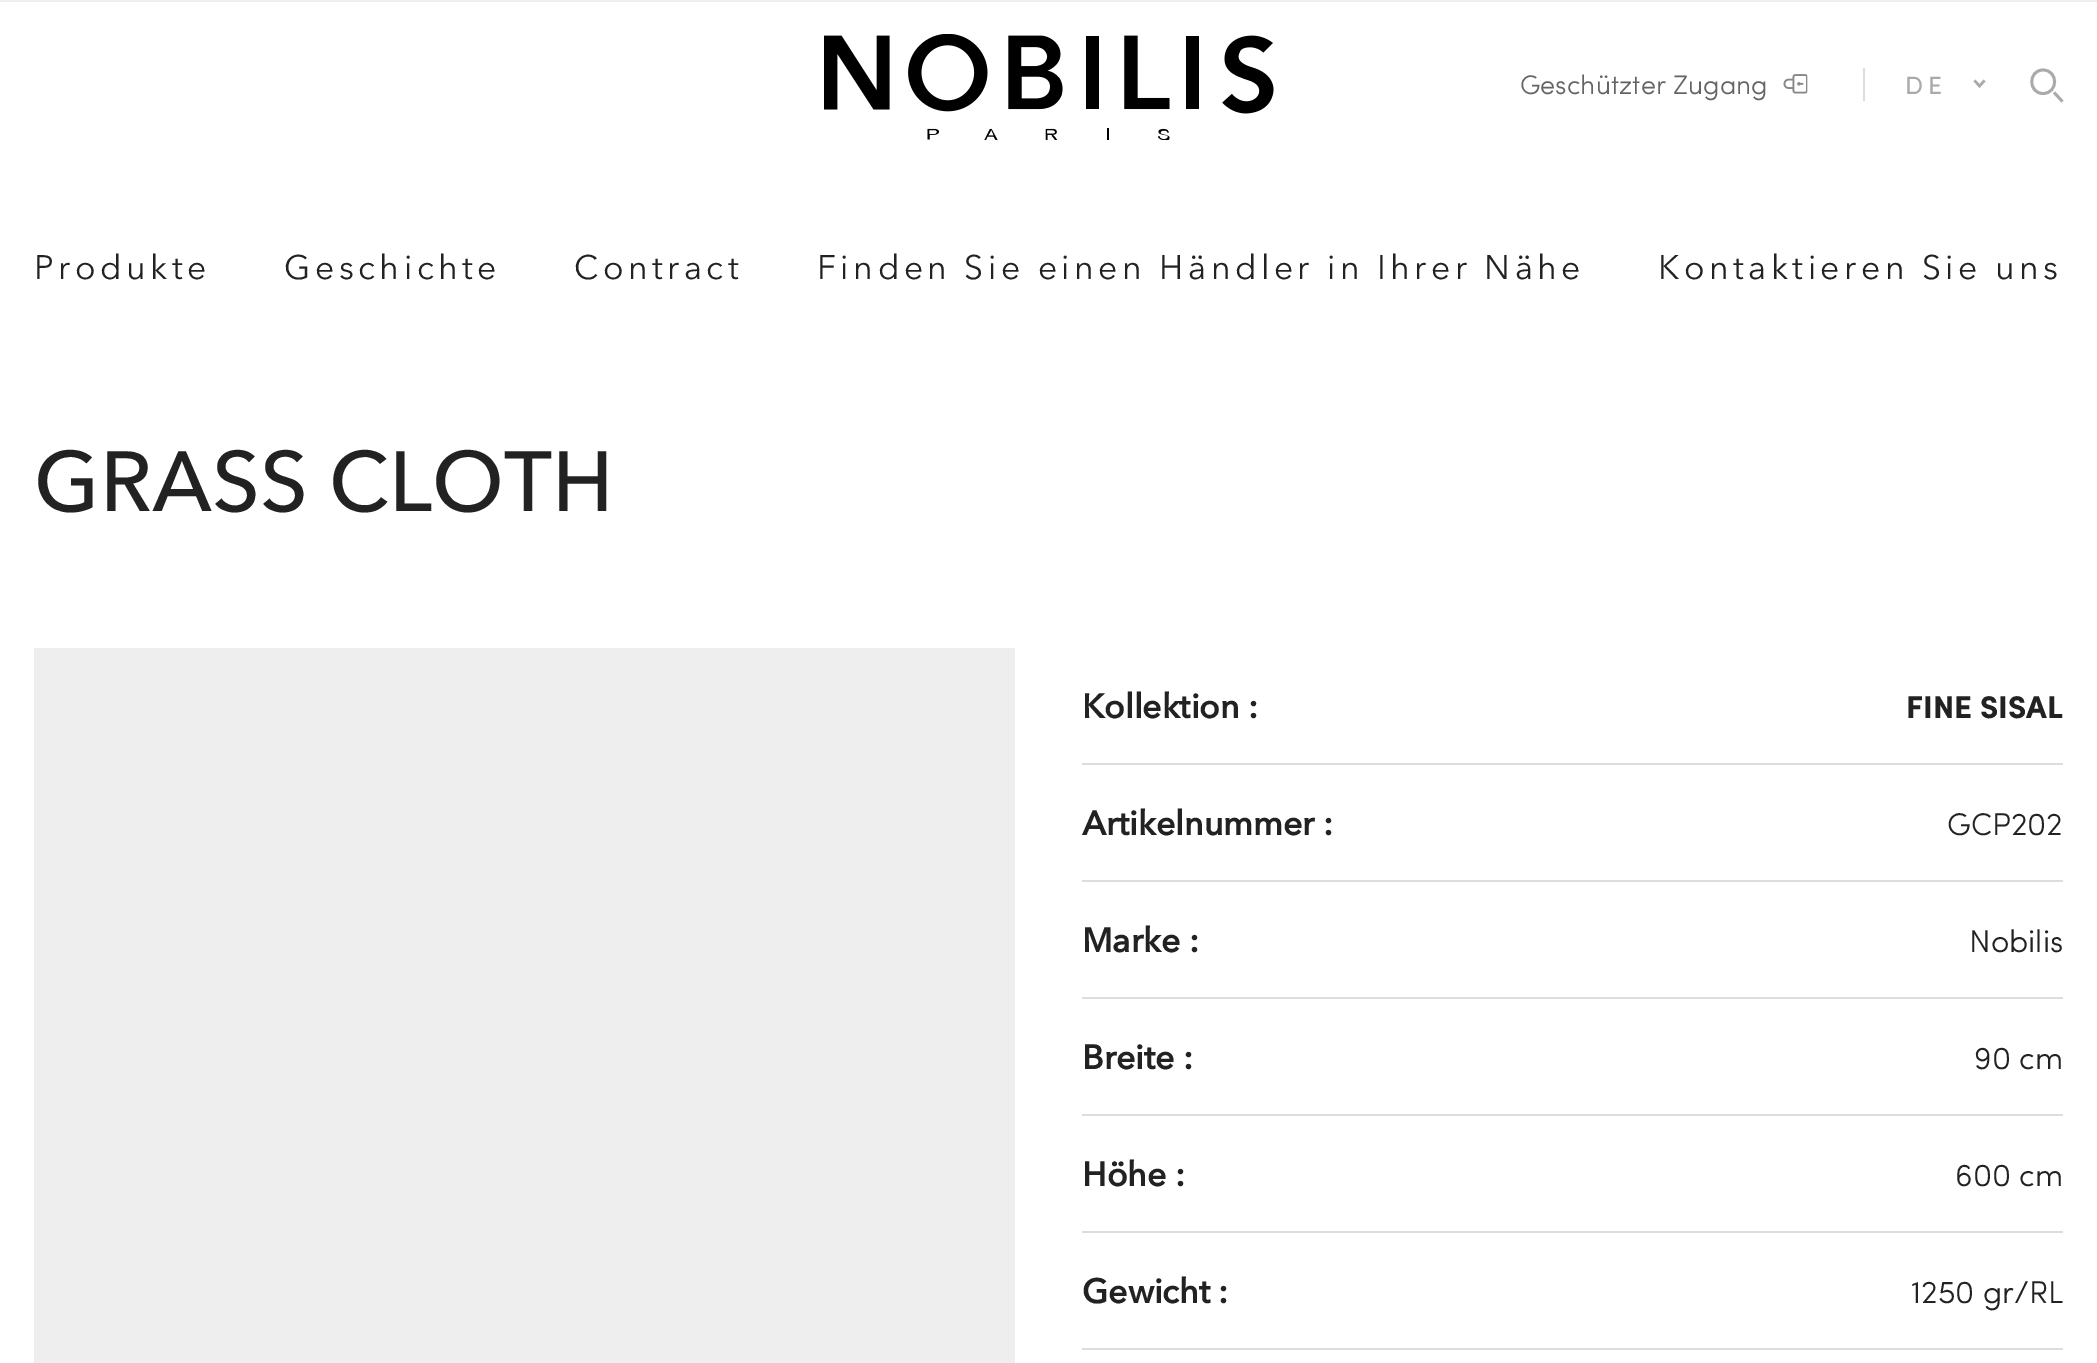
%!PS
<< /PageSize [2097 1363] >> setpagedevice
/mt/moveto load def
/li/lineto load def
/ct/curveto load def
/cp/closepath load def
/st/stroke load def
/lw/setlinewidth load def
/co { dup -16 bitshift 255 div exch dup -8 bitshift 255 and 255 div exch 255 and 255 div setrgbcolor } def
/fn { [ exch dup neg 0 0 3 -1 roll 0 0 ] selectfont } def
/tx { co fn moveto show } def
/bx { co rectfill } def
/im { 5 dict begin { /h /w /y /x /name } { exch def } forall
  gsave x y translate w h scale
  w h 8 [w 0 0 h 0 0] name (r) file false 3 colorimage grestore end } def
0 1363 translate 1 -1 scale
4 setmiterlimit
0 0 2097 1363 16#FFFFFF bx
0 0 2097 2 16#EEEEEE bx
(media/1.raw) 824 34 450 106 im
(media/2.raw) 1783 74 25 20 im
1863 68 2 33 16#DDDDDD bx
16#AAAAAA co
2.5 lw
1984.5 80.5 mt 1979.5 86 li 1974.5 80.5 li st
2.8 lw
2 setlinecap
2043 93.5 mt 2058.5 93.5 2058.5 70 2043 70 ct 2028 70 2028 93.5 2043 93.5 ct cp 2055 93.5 mt 2061.5 100.5 li st
34 648 981 715 16#EEEEEE bx
1082 763 981 2 16#DDDDDD bx
1082 880 981 2 16#DDDDDD bx
1082 997 981 2 16#DDDDDD bx
1082 1114 981 2 16#DDDDDD bx
1082 1231 981 2 16#DDDDDD bx
1082 1348 981 2 16#DDDDDD bx
(Geschützter Zugang) 1520 94 /Sofia-Light 27 16#646464 tx
/Sofia-Regular 25 fn
16#AAAAAA co
1905 94 mt 5 0 (DE) ashow
/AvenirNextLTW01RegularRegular-Regular 33.75 fn
16#222222 co
34 279 mt 4.5 0 (Produkte) ashow
284 279 mt 4.5 0 (Geschichte) ashow
574 279 mt 4.5 0 (Contract) ashow
817 279 mt 4.5 0 (Finden Sie einen Händler in Ihrer Nähe) ashow
1658 279 mt 4.5 0 (Kontaktieren Sie uns) ashow
(GRASS CLOTH) 34 511 /AvenirNext-Medium 84.5 16#222222 tx
(Kollektion :) 1082 718 /AvenirNext-Bold 33.75 16#222222 tx
(FINE SISAL) 1906 718 /Sofia-Bold 31.5 16#222222 tx
(Artikelnummer :) 1082 835 /AvenirNext-Bold 33.75 16#222222 tx
(GCP202) 1947 835 /Sofia-Light 31.5 16#222222 tx
(Marke :) 1082 952 /AvenirNext-Bold 33.75 16#222222 tx
(Nobilis) 1969 952 /Sofia-Light 31.5 16#222222 tx
(Breite :) 1082 1069 /AvenirNext-Bold 33.75 16#222222 tx
(90 cm) 1974 1069 /Sofia-Light 31.5 16#222222 tx
(Höhe :) 1082 1186 /AvenirNext-Bold 33.75 16#222222 tx
(600 cm) 1955 1186 /Sofia-Light 31.5 16#222222 tx
(Gewicht :) 1082 1303 /AvenirNext-Bold 33.75 16#222222 tx
(1250 gr/RL) 1911 1303 /Sofia-Light 31.5 16#222222 tx
showpage
